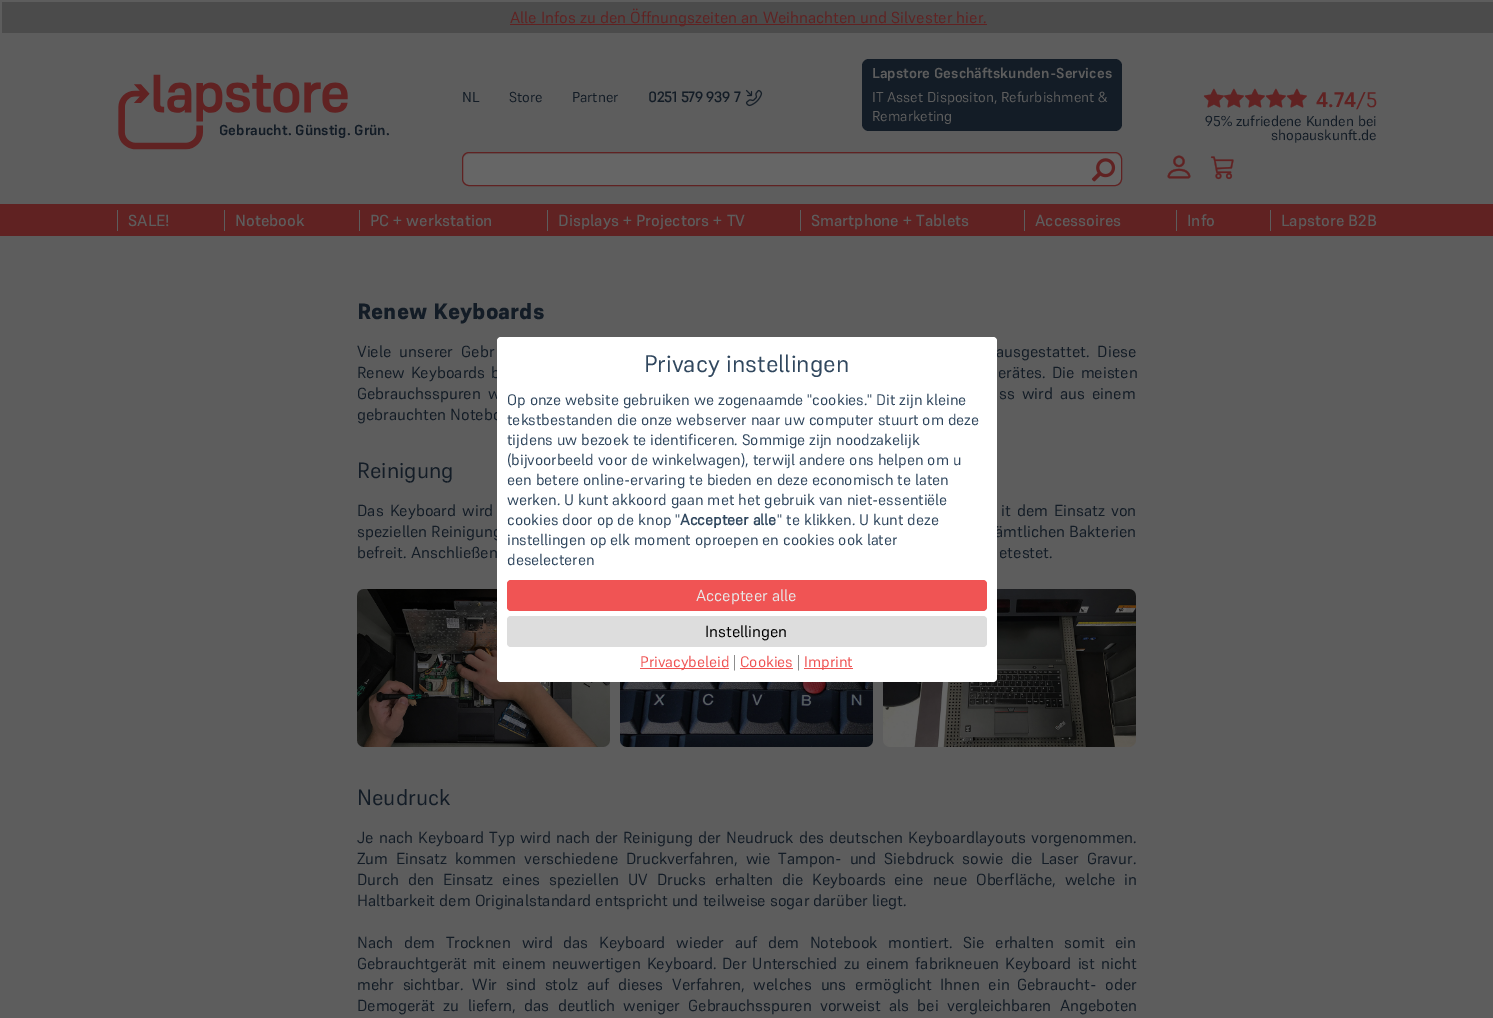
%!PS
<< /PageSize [1493 1018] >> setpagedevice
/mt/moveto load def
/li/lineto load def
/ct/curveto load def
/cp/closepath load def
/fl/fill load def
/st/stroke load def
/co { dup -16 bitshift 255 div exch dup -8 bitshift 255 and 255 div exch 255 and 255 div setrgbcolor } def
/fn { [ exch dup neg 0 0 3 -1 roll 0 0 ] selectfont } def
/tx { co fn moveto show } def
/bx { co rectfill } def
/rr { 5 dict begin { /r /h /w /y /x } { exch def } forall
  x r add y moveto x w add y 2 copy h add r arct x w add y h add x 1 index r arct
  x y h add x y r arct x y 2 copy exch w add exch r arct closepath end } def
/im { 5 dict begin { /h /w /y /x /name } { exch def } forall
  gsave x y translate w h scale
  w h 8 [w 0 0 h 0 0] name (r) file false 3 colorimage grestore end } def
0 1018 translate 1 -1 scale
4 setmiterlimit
0 0 1493 1018 16#5D5D5D bx
2 2 1491 31 16#4B4B4B bx
510 24 477 1 16#602222 bx
(media/1.raw) 118 74 230 76 im
(media/2.raw) 745 89 18 18 im
16#131C26 co
862 59 260 72 7 rr fl
16#666666 co
462 152 660 34 7 rr fl
16#5E5E5E co
469 154 mt 1115 154 li 1118 154 1121 157 1121 160 ct 1121 159 li 1121 156 1118 153 1115 153 ct 469 153 li 466 153 463 156 463 159 ct 463 160 li 463 157 466 154 469 154 ct cp fl
16#602222 co
462.5 152.5 659 33 6.5 rr st
(media/3.raw) 1091 158 25 24 im
(media/4.raw) 1203 88 21 20 im
(media/5.raw) 1224 88 20 20 im
(media/4.raw) 1244 88 21 20 im
(media/4.raw) 1265 88 21 20 im
(media/4.raw) 1286 88 21 20 im
(media/6.raw) 1167 155 24 24 im
(media/7.raw) 1210 156 24 24 im
0 204 1493 32 16#602222 bx
117 210 1 21 16#5D5D5D bx
224 210 1 21 16#5D5D5D bx
359 210 1 21 16#5D5D5D bx
547 210 1 21 16#5D5D5D bx
800 210 1 21 16#5D5D5D bx
1024 210 1 21 16#5D5D5D bx
1176 210 1 21 16#5D5D5D bx
1270 210 1 21 16#5D5D5D bx
(media/8.raw) 357 589 253 158 im
(media/9.raw) 620 682 253 65 im
(media/10.raw) 883 589 253 158 im
(Alle Infos zu den Öffnungszeiten an Weihnachten und Silvester hier.) 510 23 /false-Regular 16 16#602222 tx
(Gebraucht. Günstig. Grün.) 219 135 /false-Bold 14.4 16#131C26 tx
(NL) 462 102 /false-Regular 14.4 16#131C26 tx
(Store) 509 102 /false-Regular 14.4 16#131C26 tx
(Partner) 572 102 /false-Regular 14.4 16#131C26 tx
(0251 579 939 7) 648 102 /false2-Bold 14.4 16#131C26 tx
(Lapstore Geschäftskunden-Services) 872 78 /false-Bold 14.4 16#5D5D5D tx
(IT Asset Dispositon, Refurbishment &) 872 102 /false-Regular 14.4 16#5D5D5D tx
(Remarketing) 872 121 /false-Regular 14.4 16#5D5D5D tx
(4.74) 1316 107 /false-Bold 21 16#602222 tx
(/5) 1356 107 /false-Regular 21 16#602222 tx
(95% zufriedene Kunden bei) 1205 126 /false-Regular 14.4 16#131C26 tx
(shopauskunft.de) 1271 140 /false-Regular 14.4 16#131C26 tx
(SALE!) 128 226 /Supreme-Medium 16 16#5D5D5D tx
(Notebook) 235 226 /Supreme-Medium 16 16#5D5D5D tx
(PC + werkstation) 370 226 /Supreme-Medium 16 16#5D5D5D tx
(Displays + Projectors + TV) 558 226 /Supreme-Medium 16 16#5D5D5D tx
(Smartphone + Tablets) 811 226 /Supreme-Medium 16 16#5D5D5D tx
(Accessoires) 1035 226 /Supreme-Medium 16 16#5D5D5D tx
(Info) 1187 226 /Supreme-Medium 16 16#5D5D5D tx
(Lapstore B2B) 1281 226 /Supreme-Medium 16 16#5D5D5D tx
(Renew Keyboards) 357 319 /Supreme-ExtraBold 22 16#131C26 tx
/false-Regular 16 fn
357 357 mt 4 0 32 (Viele unserer Gebr) widthshow
996 357 mt 4 0 32 (ausgestattet. Diese) widthshow
357 378 mt 2 0 32 (Renew Keyboards b) widthshow
998 378 mt 2 0 32 (erätes. Die meisten) widthshow
357 399 mt 3 0 32 (Gebrauchsspuren w) widthshow
999 399 mt 3 0 32 (ss wird aus einem) widthshow
(gebrauchten Notebo) 357 420 /false-Regular 16 16#131C26 tx
(Reinigung) 357 478 /false-Regular 22 16#131C26 tx
/false-Regular 16 fn
357 516 mt 2 0 32 (Das Keyboard wird) widthshow
1001 516 mt 2 0 32 (it dem Einsatz von) widthshow
(speziellen Reinigung) 357 537 /false-Regular 16 16#131C26 tx
(ämtlichen Bakterien) 995 537 /false-Regular 16 16#131C26 tx
(befreit. Anschließen) 357 558 /false-Regular 16 16#131C26 tx
(etestet.) 999 558 /false-Regular 16 16#131C26 tx
(Neudruck) 357 805 /false-Regular 22 16#131C26 tx
/false-Regular 16 fn
357 843 mt .9 0 32 (Je nach Keyboard Typ wird nach der Reinigung der Neudruck des deutschen Keyboardlayouts vorgenommen.) widthshow
357 864 mt 3.75 0 32 (Zum Einsatz kommen verschiedene) widthshow
626 864 mt 3.75 0 32 (Druckverfahren, wie Tampon- und Siebdruck sowie die Laser Gravur.) widthshow
357 885 mt 4.75 0 32 (Durch den Einsatz eines speziellen UV Drucks erhalten die Keyboards) widthshow
894 885 mt 4.75 0 32 (eine neue Oberfläche, welche in) widthshow
(Haltbarkeit dem Originalstandard entspricht und teilweise sogar darüber liegt.) 357 906 /false-Regular 16 16#131C26 tx
357 948 mt 6.6 0 32 (Nach dem Trocknen wird das Keyboard wieder auf dem Notebook montiert. Sie erhalten somit ein) widthshow
357 969 mt 2 0 32 (Gebrauchtgerät mit einem neuwertigen Keyboard.) widthshow
722 969 mt 2 0 32 (Der Unterschied zu einem fabrikneuen Keyboard ist nicht) widthshow
357 990 mt 4.75 0 32 (mehr sichtbar. Wir sind stolz auf dieses Verfahren, welches uns ermöglicht Ihnen ein) widthshow
1017 990 mt 4.75 0 32 (Gebraucht- oder) widthshow
357 1011 mt 4.25 0 32 (Demogerät zu liefern, das deutlich weniger Gebrauchsspuren vorweist als bei vergleichbaren Angeboten) widthshow
16#FFFFFF co
497 337 500 345 4 rr fl
(Privacy instellingen) 644 372 /false-Regular 24 16#30475E tx
(Op onze website gebruiken we zogenaamde "cookies." Dit zijn kleine) 507 405 /false-Regular 15.3 16#30475E tx
(tekstbestanden die onze webserver naar uw computer stuurt om deze) 507 425 /false-Regular 15.3 16#30475E tx
(tijdens uw bezoek te identificeren. Sommige zijn noodzakelijk) 507 445 /false-Regular 15.3 16#30475E tx
(\(bijvoorbeeld voor de winkelwagen\), terwijl andere ons helpen om u) 507 465 /false-Regular 15.3 16#30475E tx
(een betere online-ervaring te bieden en deze economisch te laten) 507 485 /false-Regular 15.3 16#30475E tx
(werken. U kunt akkoord gaan met het gebruik van niet-essentiële) 507 505 /false-Regular 15.3 16#30475E tx
(cookies door op de knop ") 507 525 /false-Regular 15.3 16#30475E tx
(Accepteer alle) 680 525 /false2-Bold 15.3 16#30475E tx
(" te klikken. U kunt deze) 777 525 /false-Regular 15.3 16#30475E tx
(instellingen op elk moment oproepen en cookies ook later) 507 545 /false-Regular 15.3 16#30475E tx
(deselecteren) 507 565 /false-Regular 15.3 16#30475E tx
16#F05454 co
507 580 480 31 4 rr fl
(Accepteer alle) 696 601 /false-Regular 16 16#E8E8E8 tx
16#DDDDDD co
507 616 480 31 4 rr fl
(Instellingen) 705 637 /false-Regular 16 16#000000 tx
640 668 89 1 16#F05454 bx
(Privacybeleid) 640 667 /false-Regular 15.3 16#F05454 tx
(|) 733 667 /false-Regular 15.3 16#8D8D8D tx
(Cookies) 740 667 /false-Regular 15.3 16#F05454 tx
740 668 53 1 16#F05454 bx
(|) 797 667 /false-Regular 15.3 16#8D8D8D tx
804 668 49 1 16#F05454 bx
(Imprint) 804 667 /false-Regular 15.3 16#F05454 tx
showpage
